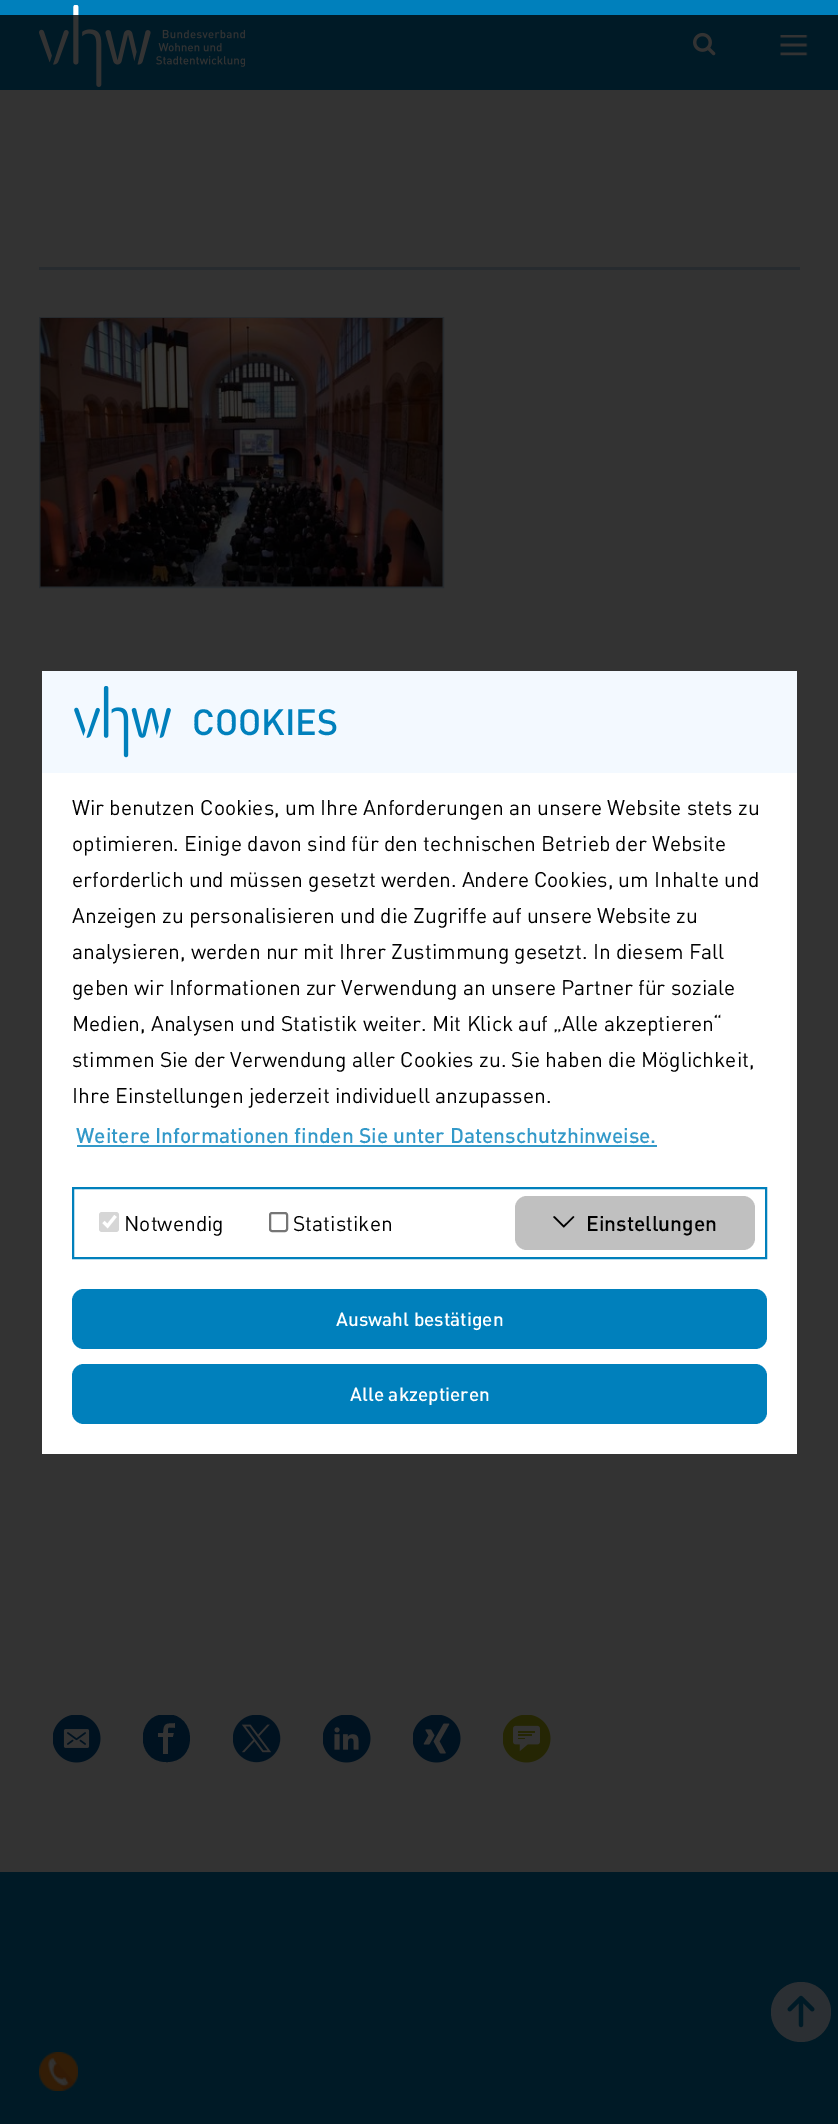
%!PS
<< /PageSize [838 2124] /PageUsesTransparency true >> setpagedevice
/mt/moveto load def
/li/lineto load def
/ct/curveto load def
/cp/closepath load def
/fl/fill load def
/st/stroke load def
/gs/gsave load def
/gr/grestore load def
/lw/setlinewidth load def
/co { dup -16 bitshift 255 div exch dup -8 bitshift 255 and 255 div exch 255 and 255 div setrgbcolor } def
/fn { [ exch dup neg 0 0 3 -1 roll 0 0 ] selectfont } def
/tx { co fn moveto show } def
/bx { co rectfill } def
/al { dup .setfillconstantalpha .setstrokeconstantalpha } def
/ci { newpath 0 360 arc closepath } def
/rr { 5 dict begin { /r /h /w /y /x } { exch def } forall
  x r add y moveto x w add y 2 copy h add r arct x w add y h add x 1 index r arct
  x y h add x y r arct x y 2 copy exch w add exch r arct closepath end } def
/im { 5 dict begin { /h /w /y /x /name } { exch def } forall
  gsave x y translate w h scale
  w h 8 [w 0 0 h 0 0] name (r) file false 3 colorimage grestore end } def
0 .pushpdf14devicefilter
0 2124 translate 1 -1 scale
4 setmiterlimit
0 0 838 2124 16#FFFFFF bx
0 0 838 90 16#0080BC bx
(media/1.raw) 39 5 206 82 im
(media/2.raw) 693 32 23 24 im
(media/3.raw) 780 35 28 21 im
39 267 761 3 16#C1D7E9 bx
2 lw
40 318 403 269 rectstroke
(media/4.raw) 40 318 403 269 im
(media/5.raw) 53 1715 48 48 im
gs
143 1715 48 48 rectclip
16#00589F co
166 1714 mt 135 1714 135 1762 166 1762 ct 198 1763 198 1714 166 1714 ct cp 175 1728 mt 168 1728 168 1726 168 1733 ct 174 1733 li 173 1737 li 168 1737 li 168 1754 li 163 1754 li 163 1737 li 158 1737 li 158 1733 li 163 1733 li 163 1723 166 1723 175 1723 ct cp fl
gr
(media/6.raw) 233 1715 48 48 im
(media/7.raw) 323 1715 48 48 im
(media/8.raw) 413 1715 48 48 im
(media/9.raw) 503 1715 48 48 im
0 1872 838 252 16#0080BC bx
(media/11.raw) 39 2052 39 39 im
16#D7ECFE co
801 2012 30 ci fl
(media/12.raw) 787 1995 28 33 im
0.8 al
0 15 838 2109 16#000000 bx
1 al
42 773 755 681 16#FFFFFF bx
42 671 755 102 16#F3F9FF bx
(media/10.raw) 74 686 97 72 im
77 1145 580 2 16#3399C9 bx
16#0080BC co
73 1188 693 70 rectstroke
16#D6D6D6 co
99 1212 20 20 3 rr fl
16#FFFFFF co
3.1 lw
103.5 1222 mt 107.5 1226 li 115.5 1216 li st
16#767676 co
2 lw
270 1213 17 18 2 rr st
16#C0C0C0 co
515 1196 240 54 12 rr fl
16#0080BC co
72 1289 695 60 12 rr fl
72 1364 695 60 12 rr fl
(COOKIES) 192 735 /DIN-Medium 36 16#0080BC tx
(Wir benutzen Cookies, um Ihre Anforderungen an unsere Website stets zu) 72 815 /DIN-Regular 21 16#000000 tx
(optimieren. Einige davon sind für den technischen Betrieb der Website) 72 851 /DIN-Regular 21 16#000000 tx
(erforderlich und müssen gesetzt werden. Andere Cookies, um Inhalte und) 72 887 /DIN-Regular 21 16#000000 tx
(Anzeigen zu personalisieren und die Zugriffe auf unsere Website zu) 72 923 /DIN-Regular 21 16#000000 tx
(analysieren, werden nur mit Ihrer Zustimmung gesetzt. In diesem Fall) 72 959 /DIN-Regular 21 16#000000 tx
(geben wir Informationen zur Verwendung an unsere Partner für soziale) 72 995 /DIN-Regular 21 16#000000 tx
(Medien, Analysen und Statistik weiter. Mit Klick auf „Alle akzeptieren“) 72 1031 /DIN-Regular 21 16#000000 tx
(stimmen Sie der Verwendung aller Cookies zu. Sie haben die Möglichkeit,) 72 1067 /DIN-Regular 21 16#000000 tx
(Ihre Einstellungen jederzeit individuell anzupassen.) 72 1103 /DIN-Regular 21 16#000000 tx
(Weitere Informationen finden Sie unter Datenschutzhinweise.) 76 1143 /DIN-Medium 21 16#3399C9 tx
(Notwendig) 124 1231 /DIN-Regular 21 16#000000 tx
(Statistiken) 293 1231 /DIN-Regular 21 16#000000 tx
(=) 553 1231 /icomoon-Regular 21 16#000000 tx
(Einstellungen) 586 1231 /DIN-Medium 21 16#000000 tx
(Auswahl bestätigen) 336 1326 /DIN-Medium 19 16#FFFFFF tx
(Alle akzeptieren) 350 1401 /DIN-Medium 19 16#FFFFFF tx
.poppdf14devicefilter showpage
